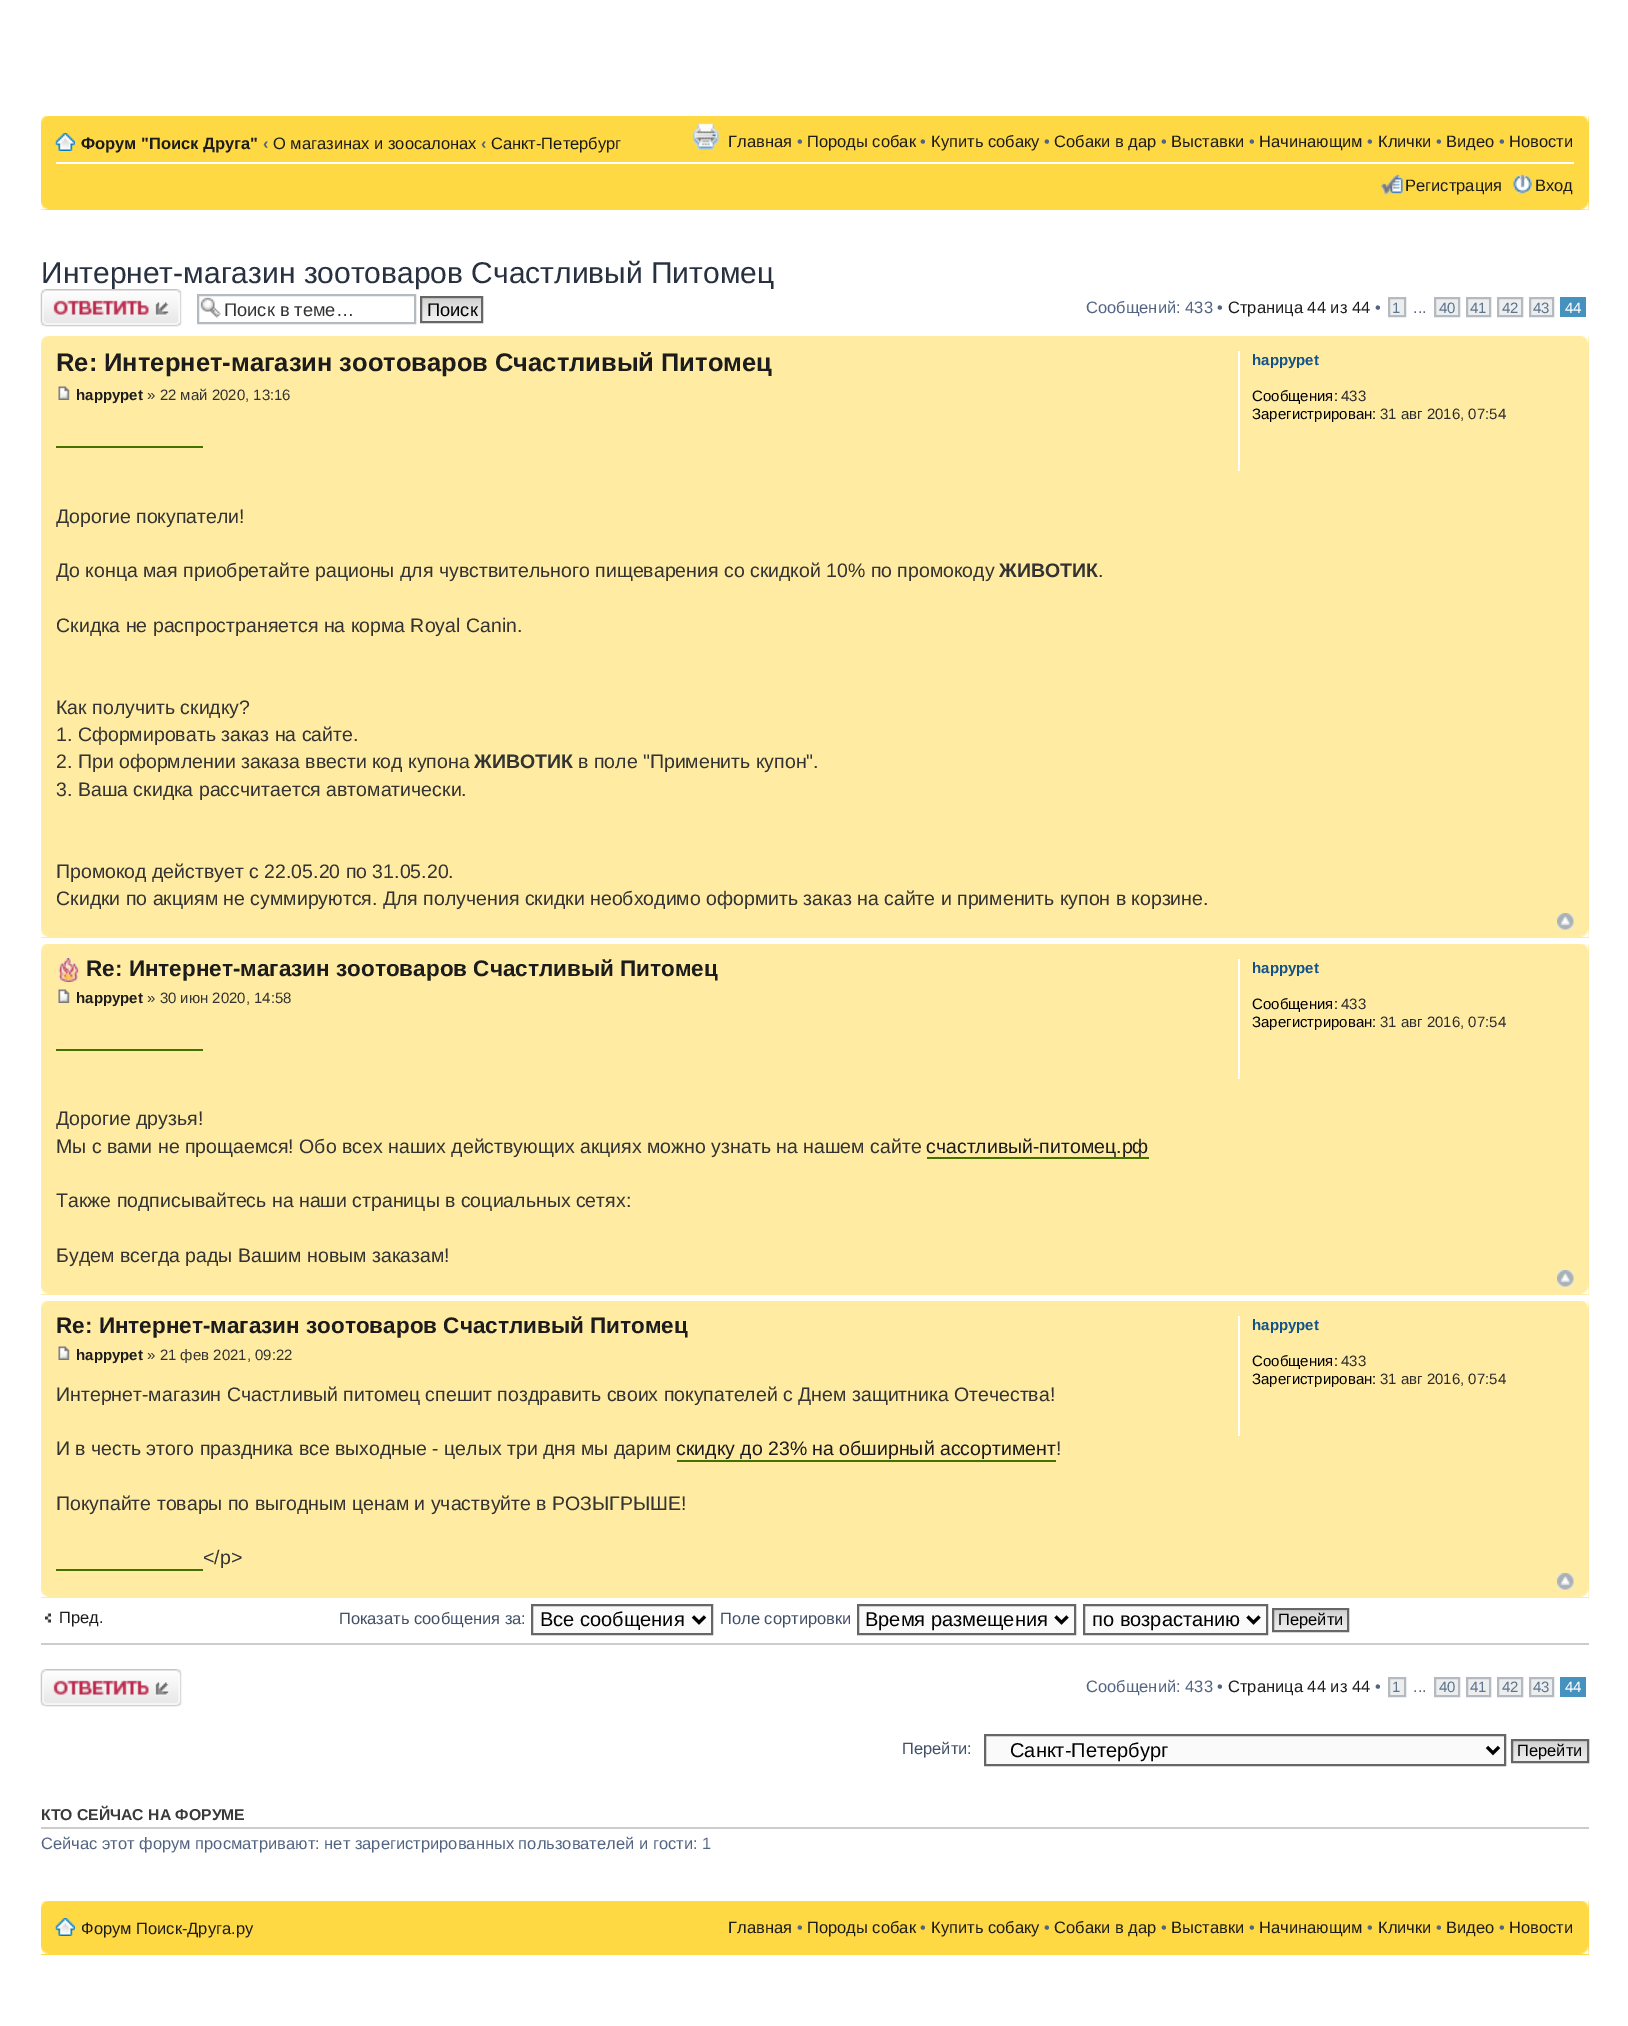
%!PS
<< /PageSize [1628 2026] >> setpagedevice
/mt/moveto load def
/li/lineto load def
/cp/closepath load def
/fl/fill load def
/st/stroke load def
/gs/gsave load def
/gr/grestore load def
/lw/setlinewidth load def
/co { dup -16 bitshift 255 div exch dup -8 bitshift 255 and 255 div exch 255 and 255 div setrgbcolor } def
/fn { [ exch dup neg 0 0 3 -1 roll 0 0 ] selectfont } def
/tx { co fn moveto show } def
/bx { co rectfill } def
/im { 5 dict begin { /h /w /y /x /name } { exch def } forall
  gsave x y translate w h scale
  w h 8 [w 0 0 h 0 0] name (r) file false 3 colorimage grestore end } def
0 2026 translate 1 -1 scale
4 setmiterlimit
0 0 1628 2026 16#FFFFFF bx
41 116 1548 94 16#FFD944 bx
(media/1.raw) 41 116 8 7 im
(media/2.raw) 1580 116 9 7 im
56 162 1518 2 16#FFFFFF bx
(media/3.raw) 55 133 20 18 im
(media/4.raw) 692 123 27 27 im
(media/5.raw) 1381 174 22 21 im
(media/6.raw) 1513 174 19 20 im
(media/7.raw) 41 202 8 8 im
(media/8.raw) 1580 202 9 8 im
(media/10.raw) 200 297 21 21 im
16#B4BAC0 co
2 lw
198 295 217 28 rectstroke
(media/11.raw) 422 298 59 23 im
16#666666 co
421 297 61 25 rectstroke
16#ECEDEE co
1389 298 mt 1405 298 li 1405 316 li 1389 316 li cp gs fl gr
16#B4BAC0 co
st
16#ECEDEE co
1435 298 mt 1459 298 li 1459 316 li 1435 316 li cp gs fl gr
16#B4BAC0 co
st
16#ECEDEE co
1467 298 mt 1490 298 li 1490 316 li 1467 316 li cp gs fl gr
16#B4BAC0 co
st
16#ECEDEE co
1498 298 mt 1522 298 li 1522 316 li 1498 316 li cp gs fl gr
16#B4BAC0 co
st
16#ECEDEE co
1530 298 mt 1553 298 li 1553 316 li 1530 316 li cp gs fl gr
16#B4BAC0 co
st
1560 297 26 20 16#4692BF bx
41 336 1548 602 16#FFECA2 bx
(media/12.raw) 41 336 8 7 im
(media/13.raw) 1580 336 9 7 im
(media/14.raw) 58 386 12 14 im
56 446 147 2 16#437200 bx
1238 351 2 120 16#FFFFFF bx
(media/15.raw) 1557 913 17 17 im
(media/16.raw) 41 929 8 8 im
(media/17.raw) 1581 929 8 8 im
41 944 1548 351 16#FFECA2 bx
(media/18.raw) 41 944 7 7 im
(media/19.raw) 1581 944 8 7 im
(media/20.raw) 58 958 21 24 im
(media/14.raw) 58 989 12 14 im
56 1049 147 2 16#437200 bx
927 1157 222 2 16#437200 bx
1238 959 2 120 16#FFFFFF bx
(media/15.raw) 1557 1270 17 17 im
(media/16.raw) 41 1286 8 8 im
(media/17.raw) 1581 1286 8 8 im
41 1301 1548 297 16#FFECA2 bx
(media/18.raw) 41 1301 7 7 im
(media/19.raw) 1581 1301 8 7 im
(media/14.raw) 58 1346 12 14 im
677 1460 379 2 16#437200 bx
56 1569 147 2 16#437200 bx
1238 1316 2 120 16#FFFFFF bx
(media/15.raw) 1557 1573 17 17 im
(media/16.raw) 41 1589 8 8 im
(media/17.raw) 1581 1589 8 8 im
(media/21.raw) 45 1613 6 10 im
16#FAFAFA co
532 1605 mt 712 1605 li 712 1634 li 532 1634 li cp gs fl gr
16#666666 co
st
16#000000 co
3 lw
693 1616.5 mt 699 1622.5 li 705 1616.5 li st
16#FAFAFA co
858 1605 mt 1075 1605 li 1075 1634 li 858 1634 li cp gs fl gr
16#666666 co
2 lw
st
16#000000 co
3 lw
1055.5 1616.5 mt 1061.5 1622.5 li 1067.5 1616.5 li st
16#FAFAFA co
1084 1605 mt 1267 1605 li 1267 1634 li 1084 1634 li cp gs fl gr
16#666666 co
2 lw
st
16#000000 co
3 lw
1247.5 1616.5 mt 1253.5 1622.5 li 1259.5 1616.5 li st
(media/22.raw) 1274 1610 73 20 im
16#666666 co
2 lw
1273 1609 75 22 rectstroke
41 1643 1548 2 16#CCCCCC bx
(media/9.raw) 40 1669 142 38 im
16#ECEDEE co
1389 1678 mt 1405 1678 li 1405 1696 li 1389 1696 li cp gs fl gr
16#B4BAC0 co
st
16#ECEDEE co
1435 1678 mt 1459 1678 li 1459 1696 li 1435 1696 li cp gs fl gr
16#B4BAC0 co
st
16#ECEDEE co
1467 1678 mt 1490 1678 li 1490 1696 li 1467 1696 li cp gs fl gr
16#B4BAC0 co
st
16#ECEDEE co
1498 1678 mt 1522 1678 li 1522 1696 li 1498 1696 li cp gs fl gr
16#B4BAC0 co
st
16#ECEDEE co
1530 1678 mt 1553 1678 li 1553 1696 li 1530 1696 li cp gs fl gr
16#B4BAC0 co
st
1560 1677 26 20 16#4692BF bx
16#FAFAFA co
985 1735 mt 1505 1735 li 1505 1765 li 985 1765 li cp gs fl gr
16#666666 co
st
16#000000 co
3 lw
1487 1747 mt 1493 1753 li 1499 1747 li st
(media/23.raw) 1510 1740 77 22 im
16#666666 co
2 lw
1512 1740 76 22 rectstroke
41 1827 1548 2 16#CCCCCC bx
41 1901 1548 54 16#FFD944 bx
(media/1.raw) 41 1901 8 7 im
(media/2.raw) 1580 1901 9 7 im
(media/3.raw) 55 1918 20 18 im
(media/24.raw) 41 1946 8 8 im
(media/25.raw) 1580 1946 9 8 im
(Форум "Поиск Друга") 81 149 /LiberationSans-Bold 16.5 16#1C1C1C tx
(‹) 263 149 /LiberationSans-Bold 16.5 16#536482 tx
(О магазинах и зоосалонах) 273 149 /LiberationSans-Regular 16.5 16#1C1C1C tx
(‹) 481 149 /LiberationSans-Bold 16.5 16#536482 tx
(Санкт-Петербург) 491 149 /LiberationSans-Regular 16.5 16#1C1C1C tx
(Главная) 728 147 /LiberationSans-Regular 16.5 16#1C1C1C tx
(•) 797 147 /LiberationSans-Regular 16.5 16#536482 tx
(Породы собак) 807 147 /LiberationSans-Regular 16.5 16#1C1C1C tx
(•) 920 147 /LiberationSans-Regular 16.5 16#536482 tx
(Купить собаку) 931 147 /LiberationSans-Regular 16.5 16#1C1C1C tx
(•) 1044 147 /LiberationSans-Regular 16.5 16#536482 tx
(Собаки в дар) 1054 147 /LiberationSans-Regular 16.5 16#1C1C1C tx
(•) 1161 147 /LiberationSans-Regular 16.5 16#536482 tx
(Выставки) 1171 147 /LiberationSans-Regular 16.5 16#1C1C1C tx
(•) 1249 147 /LiberationSans-Regular 16.5 16#536482 tx
(Начинающим) 1259 147 /LiberationSans-Regular 16.5 16#1C1C1C tx
(•) 1367 147 /LiberationSans-Regular 16.5 16#536482 tx
(Клички) 1378 147 /LiberationSans-Regular 16.5 16#1C1C1C tx
(•) 1436 147 /LiberationSans-Regular 16.5 16#536482 tx
(Видео) 1446 147 /LiberationSans-Regular 16.5 16#1C1C1C tx
(•) 1499 147 /LiberationSans-Regular 16.5 16#536482 tx
(Новости) 1509 147 /LiberationSans-Regular 16.5 16#1C1C1C tx
(Регистрация) 1405 191 /LiberationSans-Regular 16.5 16#1C1C1C tx
(Вход) 1535 191 /LiberationSans-Regular 16.5 16#1C1C1C tx
(Интернет-магазин зоотоваров Счастливый Питомец) 41 283 /LiberationSans-Regular 30 16#28313F tx
(media/9.raw) 40 289 142 38 im
(Поиск в теме…) 224 316 /LiberationSans-Regular 18.25 16#333333 tx
(Поиск) 427 316 /LiberationSans-Regular 18.25 16#000000 tx
(Сообщений: 433 •) 1086 313 /LiberationSans-Regular 16.5 16#536482 tx
(Страница 44 из 44) 1228 313 /LiberationSans-Regular 16.5 16#1C1C1C tx
(•) 1375 313 /LiberationSans-Regular 16.5 16#536482 tx
(1) 1392 313 /LiberationSans-Regular 15 16#5C758C tx
(40) 1439 313 /LiberationSans-Regular 15 16#5C758C tx
(41) 1470 313 /LiberationSans-Regular 15 16#5C758C tx
(42) 1502 313 /LiberationSans-Regular 15 16#5C758C tx
(43) 1533 313 /LiberationSans-Regular 15 16#5C758C tx
(44) 1565 313 /LiberationSans-Regular 15 16#FFFFFF tx
(...) 1413 313 /LiberationSans-Regular 16.5 16#536482 tx
(Re: Интернет-магазин зоотоваров Счастливый Питомец) 56 371 /LiberationSans-Bold 25.5 16#1C1C1C tx
(happypet) 76 400 /LiberationSans-Bold 15 16#1C1C1C tx
(» 22 май 2020, 13:16) 147 400 /LiberationSans-Regular 15 16#333333 tx
gs
56 422 1153 492 rectclip
(Дорогие покупатели!) 56 523 /LiberationSans-Regular 19.5 16#333333 tx
(До конца мая приобретайте рационы для чувствительного пищеварения со скидкой 10% по промокоду) 56 577 /LiberationSans-Regular 19.5 16#333333 tx
gr
(ЖИВОТИК) 999 577 /LiberationSans-Bold 19.5 16#333333 tx
(.) 1098 577 /LiberationSans-Regular 19.5 16#333333 tx
(Скидка не распространяется на корма Royal Canin.) 56 632 /LiberationSans-Regular 19.5 16#333333 tx
(Как получить скидку?) 56 714 /LiberationSans-Regular 19.5 16#333333 tx
(1. Сформировать заказ на сайте.) 56 741 /LiberationSans-Regular 19.5 16#333333 tx
(2. При оформлении заказа ввести код купона) 56 768 /LiberationSans-Regular 19.5 16#333333 tx
(ЖИВОТИК) 474 768 /LiberationSans-Bold 19.5 16#333333 tx
(в поле "Применить купон".) 578 768 /LiberationSans-Regular 19.5 16#333333 tx
(3. Ваша скидка рассчитается автоматически.) 56 796 /LiberationSans-Regular 19.5 16#333333 tx
(Промокод действует с 22.05.20 по 31.05.20.) 56 878 /LiberationSans-Regular 19.5 16#333333 tx
(Скидки по акциям не суммируются. Для получения скидки необходимо оформить заказ на сайте и применить купон в корзине.) 56 905 /LiberationSans-Regular 19.5 16#333333 tx
(happypet) 1252 365 /LiberationSans-Bold 15 16#105289 tx
(Сообщения:) 1252 401 /LiberationSans-Regular 15 16#000000 tx
(433) 1341 401 /LiberationSans-Regular 15 16#2D2D2D tx
(Зарегистрирован:) 1252 419 /LiberationSans-Regular 15 16#000000 tx
(31 авг 2016, 07:54) 1380 419 /LiberationSans-Regular 15 16#2D2D2D tx
(Re: Интернет-магазин зоотоваров Счастливый Питомец) 86 976 /LiberationSans-Bold 22.5 16#1C1C1C tx
(happypet) 76 1003 /LiberationSans-Bold 15 16#1C1C1C tx
(» 30 июн 2020, 14:58) 147 1003 /LiberationSans-Regular 15 16#333333 tx
gs
56 1025 1153 246 rectclip
(Дорогие друзья!) 56 1125 /LiberationSans-Regular 19.5 16#333333 tx
gr
(Мы с вами не прощаемся! Обо всех наших действующих акциях можно узнать на нашем сайте) 56 1153 /LiberationSans-Regular 19.5 16#333333 tx
(счастливый-питомец.рф) 926 1153 /LiberationSans-Regular 19.5 16#1C1C1C tx
(Также подписывайтесь на наши страницы в социальных сетях:) 56 1207 /LiberationSans-Regular 19.5 16#333333 tx
(Будем всегда рады Вашим новым заказам!) 56 1262 /LiberationSans-Regular 19.5 16#333333 tx
(happypet) 1252 973 /LiberationSans-Bold 15 16#105289 tx
(Сообщения:) 1252 1009 /LiberationSans-Regular 15 16#000000 tx
(433) 1341 1009 /LiberationSans-Regular 15 16#2D2D2D tx
(Зарегистрирован:) 1252 1027 /LiberationSans-Regular 15 16#000000 tx
(31 авг 2016, 07:54) 1380 1027 /LiberationSans-Regular 15 16#2D2D2D tx
(Re: Интернет-магазин зоотоваров Счастливый Питомец) 56 1333 /LiberationSans-Bold 22.5 16#1C1C1C tx
(happypet) 76 1360 /LiberationSans-Bold 15 16#1C1C1C tx
(» 21 фев 2021, 09:22) 147 1360 /LiberationSans-Regular 15 16#333333 tx
(Интернет-магазин Счастливый питомец спешит поздравить своих покупателей с Днем защитника Отечества!) 56 1401 /LiberationSans-Regular 19.5 16#333333 tx
(И в честь этого праздника все выходные - целых три дня мы дарим) 56 1455 /LiberationSans-Regular 19.5 16#333333 tx
(скидку до 23% на обширный ассортимент) 676 1455 /LiberationSans-Regular 19.5 16#1C1C1C tx
(!) 1056 1455 /LiberationSans-Regular 19.5 16#333333 tx
(Покупайте товары по выгодным ценам и участвуйте в РОЗЫГРЫШЕ!) 56 1510 /LiberationSans-Regular 19.5 16#333333 tx
(</p>) 203 1564 /LiberationSans-Regular 19.5 16#333333 tx
(happypet) 1252 1330 /LiberationSans-Bold 15 16#105289 tx
(Сообщения:) 1252 1366 /LiberationSans-Regular 15 16#000000 tx
(433) 1341 1366 /LiberationSans-Regular 15 16#2D2D2D tx
(Зарегистрирован:) 1252 1384 /LiberationSans-Regular 15 16#000000 tx
(31 авг 2016, 07:54) 1380 1384 /LiberationSans-Regular 15 16#2D2D2D tx
(Пред.) 59 1623 /LiberationSans-Regular 16.5 16#1C1C1C tx
(Показать сообщения за:) 339 1624 /LiberationSans-Regular 16.5 16#425067 tx
(Все сообщения) 540 1626 /LiberationSans-Regular 20 16#000000 tx
(Поле сортировки) 720 1624 /LiberationSans-Regular 16.5 16#425067 tx
(Время размещения) 865 1626 /LiberationSans-Regular 20 16#000000 tx
(по возрастанию) 1092 1626 /LiberationSans-Regular 20 16#000000 tx
(Перейти) 1278 1625 /LiberationSans-Regular 16.5 16#000000 tx
(Сообщений: 433 •) 1086 1692 /LiberationSans-Regular 16.5 16#536482 tx
(Страница 44 из 44) 1228 1692 /LiberationSans-Regular 16.5 16#1C1C1C tx
(•) 1375 1692 /LiberationSans-Regular 16.5 16#536482 tx
(1) 1392 1692 /LiberationSans-Regular 15 16#5C758C tx
(40) 1439 1692 /LiberationSans-Regular 15 16#5C758C tx
(41) 1470 1692 /LiberationSans-Regular 15 16#5C758C tx
(42) 1502 1692 /LiberationSans-Regular 15 16#5C758C tx
(43) 1533 1692 /LiberationSans-Regular 15 16#5C758C tx
(44) 1565 1692 /LiberationSans-Regular 15 16#FFFFFF tx
(...) 1413 1692 /LiberationSans-Regular 16.5 16#536482 tx
(Перейти:) 902 1754 /LiberationSans-Regular 16.5 16#425067 tx
(Санкт-Петербург) 1010 1757 /LiberationSans-Regular 20 16#000000 tx
(Перейти) 1517 1756 /LiberationSans-Regular 16.5 16#000000 tx
(КТО СЕЙЧАС НА ФОРУМЕ) 41 1820 /LiberationSans-Bold 15.75 16#3A3A3A tx
(Сейчас этот форум просматривают: нет зарегистрированных пользователей и гости: 1) 41 1849 /LiberationSans-Regular 16.5 16#536482 tx
(Форум Поиск-Друга.ру) 81 1934 /LiberationSans-Regular 16.5 16#1C1C1C tx
(Главная) 728 1933 /LiberationSans-Regular 16.5 16#1C1C1C tx
(•) 797 1933 /LiberationSans-Regular 16.5 16#536482 tx
(Породы собак) 807 1933 /LiberationSans-Regular 16.5 16#1C1C1C tx
(•) 920 1933 /LiberationSans-Regular 16.5 16#536482 tx
(Купить собаку) 931 1933 /LiberationSans-Regular 16.5 16#1C1C1C tx
(•) 1044 1933 /LiberationSans-Regular 16.5 16#536482 tx
(Собаки в дар) 1054 1933 /LiberationSans-Regular 16.5 16#1C1C1C tx
(•) 1161 1933 /LiberationSans-Regular 16.5 16#536482 tx
(Выставки) 1171 1933 /LiberationSans-Regular 16.5 16#1C1C1C tx
(•) 1249 1933 /LiberationSans-Regular 16.5 16#536482 tx
(Начинающим) 1259 1933 /LiberationSans-Regular 16.5 16#1C1C1C tx
(•) 1367 1933 /LiberationSans-Regular 16.5 16#536482 tx
(Клички) 1378 1933 /LiberationSans-Regular 16.5 16#1C1C1C tx
(•) 1436 1933 /LiberationSans-Regular 16.5 16#536482 tx
(Видео) 1446 1933 /LiberationSans-Regular 16.5 16#1C1C1C tx
(•) 1499 1933 /LiberationSans-Regular 16.5 16#536482 tx
(Новости) 1509 1933 /LiberationSans-Regular 16.5 16#1C1C1C tx
showpage
